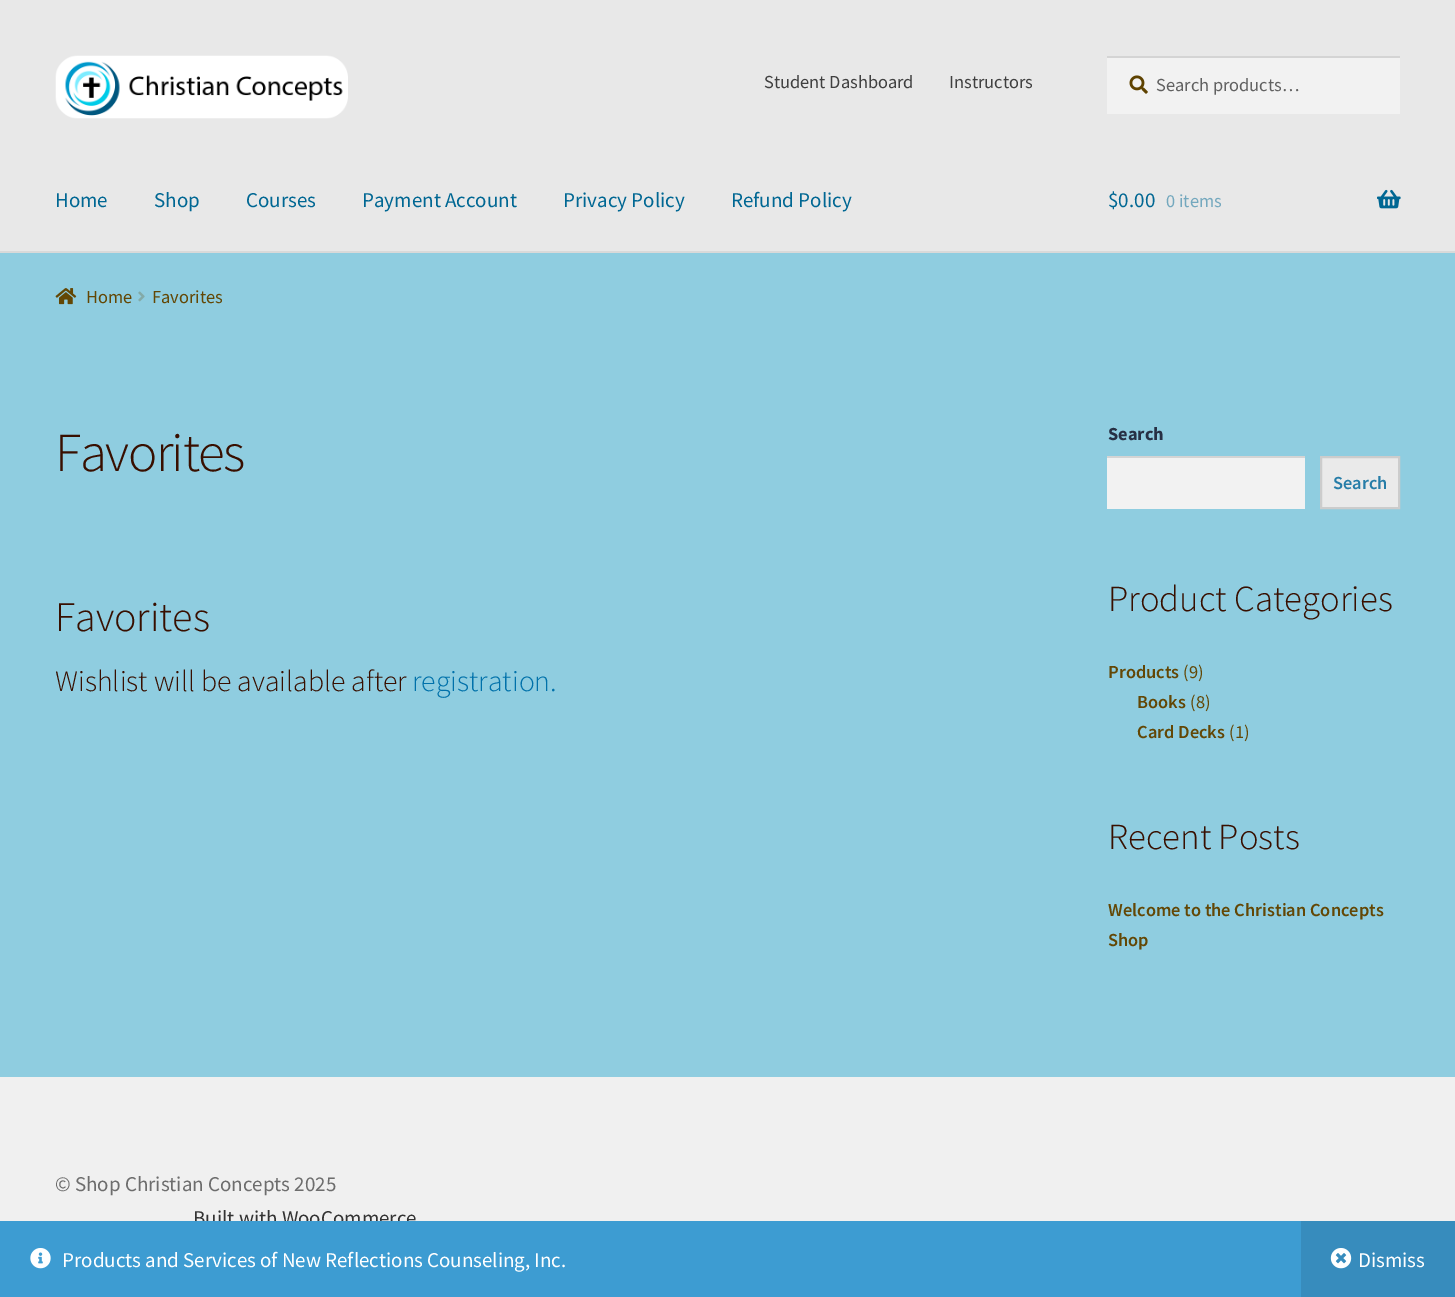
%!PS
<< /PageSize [1455 1297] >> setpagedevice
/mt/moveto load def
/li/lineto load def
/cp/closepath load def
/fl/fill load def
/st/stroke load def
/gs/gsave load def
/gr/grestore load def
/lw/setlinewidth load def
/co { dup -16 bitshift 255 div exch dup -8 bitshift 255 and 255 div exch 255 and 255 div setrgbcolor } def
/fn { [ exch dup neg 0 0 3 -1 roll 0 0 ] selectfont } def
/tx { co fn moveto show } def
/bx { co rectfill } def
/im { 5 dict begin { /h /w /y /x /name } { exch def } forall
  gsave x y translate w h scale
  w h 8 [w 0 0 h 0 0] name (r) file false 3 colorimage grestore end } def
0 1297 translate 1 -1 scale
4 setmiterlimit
0 0 1455 1297 16#8FCDE0 bx
0 0 1455 251 16#E8E8E8 bx
0 251 1455 2 16#D9D9D9 bx
(media/1.raw) 55 55 293 64 im
1107 58 293 56 16#F2F2F2 bx
(media/2.raw) 1129 75 19 19 im
1107 56 293 2 16#D4D4D4 bx
(media/3.raw) 1377 189 24 20 im
(media/4.raw) 55 288 22 17 im
(media/5.raw) 138 291 7 11 im
1107 458 198 51 16#F2F2F2 bx
1107 456 198 2 16#D4D4D4 bx
16#EAEAEA co
1321 457 mt 1399 457 li 1399 508 li 1321 508 li cp gs fl gr
16#CCCCCC co
2 lw
st
0 1077 1455 144 16#F0F0F0 bx
1301 1221 154 76 16#378CBD bx
(media/7.raw) 1330 1248 22 21 im
(Student Dashboard) 764 88 /SourceSansPro-Regular 18.4 16#404040 tx
(Instructors) 949 88 /SourceSansPro-Regular 18.4 16#404040 tx
(Search products…) 1156 91 /SourceSansPro-Regular 18.4 16#616161 tx
(Home) 55 207 /SourceSansPro-Regular 21 16#006793 tx
(Shop) 154 207 /SourceSansPro-Regular 21 16#006793 tx
(Courses) 246 207 /SourceSansPro-Regular 21 16#006793 tx
(Payment Account) 362 207 /SourceSansPro-Regular 21 16#006793 tx
(Privacy Policy) 563 207 /SourceSansPro-Regular 21 16#006793 tx
(Refund Policy) 731 207 /SourceSansPro-Regular 21 16#006793 tx
($0.00) 1108 207 /SourceSansPro-Regular 21 16#006793 tx
(0 items) 1166 207 /SourceSansPro-Regular 18.4 16#74A8BE tx
(Home) 86 303 /SourceSansPro-Regular 18.4 16#634705 tx
(Favorites) 152 303 /SourceSansPro-Regular 18.4 16#634705 tx
/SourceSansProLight-Light 55 fn
16#380F00 co
55 471 mt -1.5 0 (Favorites) ashow
(Favorites) 55 631 /SourceSansProLight-Light 42 16#380F00 tx
(Wishlist will be available after) 55 691 /SourceSansProLight-Light 29.75 16#380F00 tx
(registration.) 412 691 /SourceSansProLight-Light 29.75 16#0071AA tx
(Search) 1108 440 /SourceSansPro-Bold 18.4 16#273044 tx
(Search) 1333 489 /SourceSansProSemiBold-SemiBold 18.4 16#267DA8 tx
(Product Categories) 1108 611 /SourceSansProLight-Light 36.75 16#380F00 tx
(Products) 1108 678 /SourceSansProSemiBold-SemiBold 18.4 16#634705 tx
(\(9\)) 1183 678 /SourceSansPro-Regular 18.4 16#634705 tx
(Books) 1137 708 /SourceSansProSemiBold-SemiBold 18.4 16#634705 tx
(\(8\)) 1190 708 /SourceSansPro-Regular 18.4 16#634705 tx
(Card Decks) 1137 738 /SourceSansProSemiBold-SemiBold 18.4 16#634705 tx
(\(1\)) 1229 738 /SourceSansPro-Regular 18.4 16#634705 tx
(Recent Posts) 1108 849 /SourceSansProLight-Light 36.75 16#380F00 tx
(Welcome to the Christian Concepts) 1108 916 /SourceSansProSemiBold-SemiBold 18.4 16#634705 tx
(Shop) 1108 946 /SourceSansProSemiBold-SemiBold 18.4 16#634705 tx
(© Shop Christian Concepts 2025) 55 1191 /SourceSansPro-Regular 21 16#6D6D6D tx
(Built with WooCommerce) 193 1225 /SourceSansPro-Regular 21 16#333333 tx
0 1221 1301 76 16#3D9CD2 bx
(media/6.raw) 30 1248 21 21 im
(Products and Services of New Reflections Counseling, Inc.) 62 1267 /SourceSansPro-Regular 21 16#FFFFFF tx
(Dismiss) 1358 1267 /SourceSansPro-Regular 21 16#FFFFFF tx
showpage
